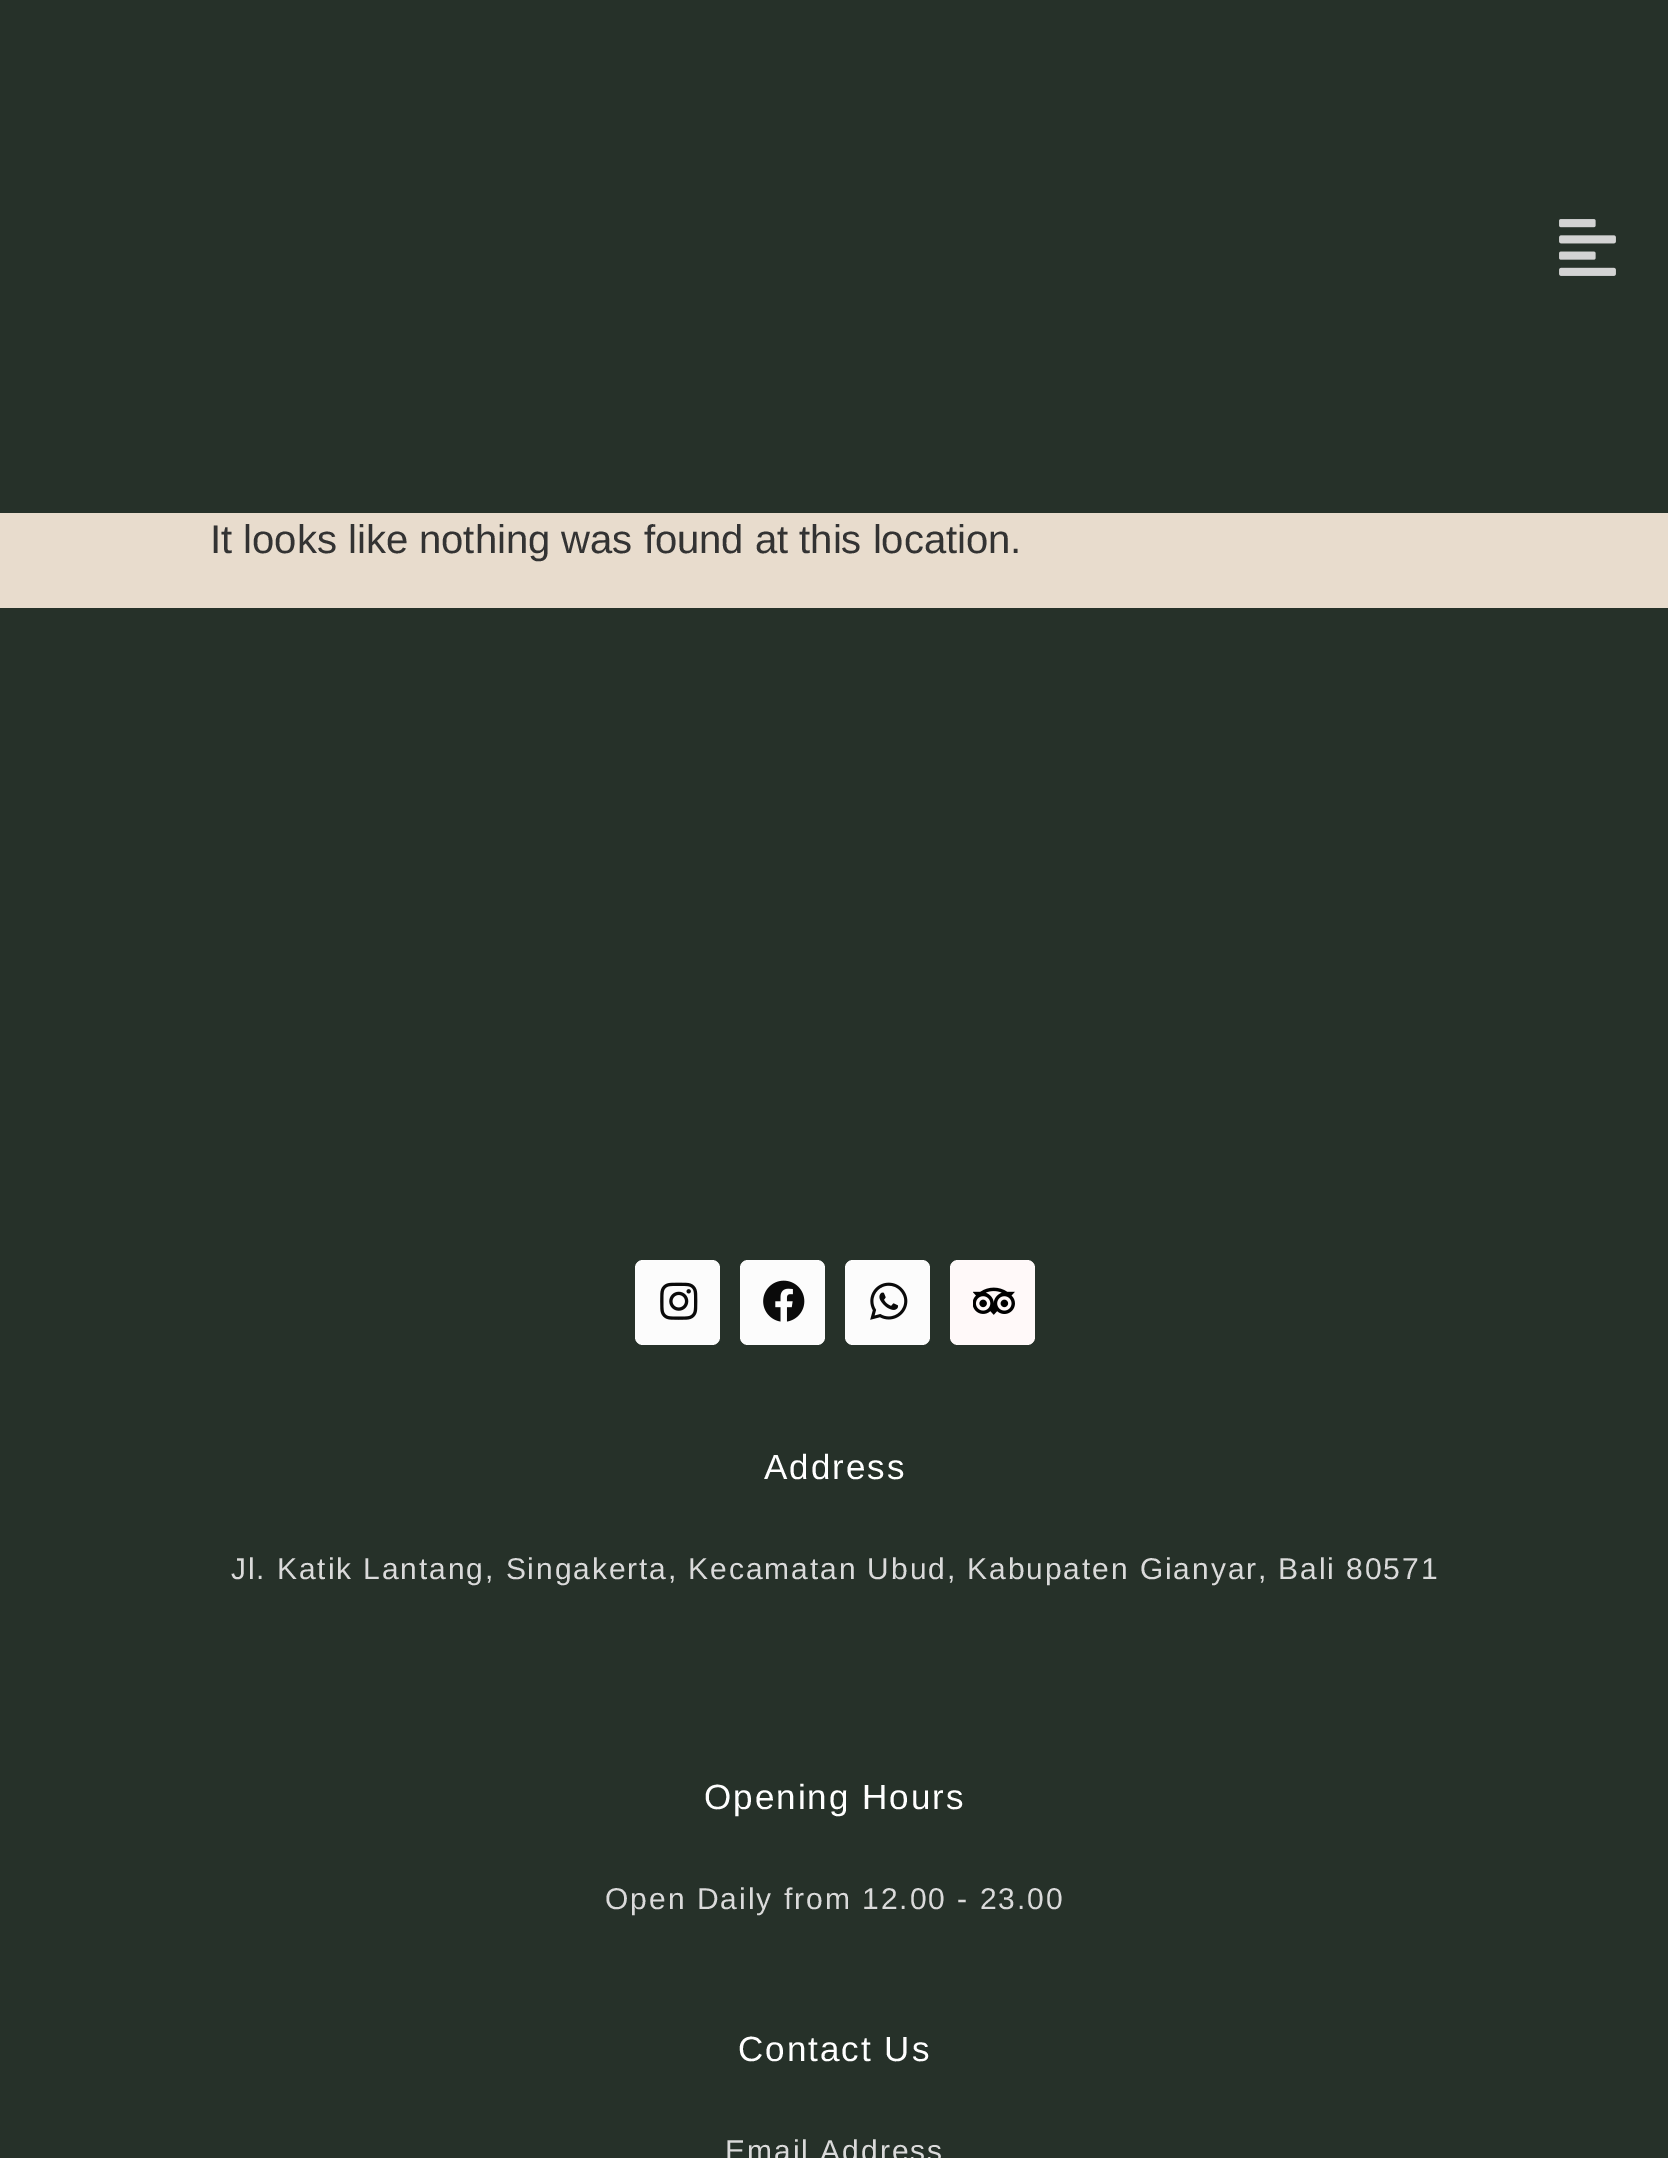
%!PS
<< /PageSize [1668 2158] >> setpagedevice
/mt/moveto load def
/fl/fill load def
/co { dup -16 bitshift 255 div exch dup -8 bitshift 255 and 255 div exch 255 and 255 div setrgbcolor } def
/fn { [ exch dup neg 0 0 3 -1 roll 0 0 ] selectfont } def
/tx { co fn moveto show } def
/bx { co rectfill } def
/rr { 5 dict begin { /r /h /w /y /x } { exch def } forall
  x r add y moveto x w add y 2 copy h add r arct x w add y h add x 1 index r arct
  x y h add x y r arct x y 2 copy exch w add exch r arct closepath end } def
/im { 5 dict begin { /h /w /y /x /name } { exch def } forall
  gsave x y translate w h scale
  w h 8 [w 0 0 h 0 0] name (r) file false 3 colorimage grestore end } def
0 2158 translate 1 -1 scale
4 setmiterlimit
0 0 1668 2158 16#E8DCCD bx
0 0 1668 513 16#263129 bx
(media/1.raw) 1559 219 57 57 im
0 608 1668 1550 16#263129 bx
16#FCFCFC co
635 1260 85 85 8 rr fl
(media/2.raw) 660 1282 38 38 im
740 1260 85 85 8 rr fl
(media/3.raw) 763 1280 42 42 im
845 1260 85 85 8 rr fl
(media/4.raw) 870 1282 38 38 im
16#FFF9F9 co
950 1260 85 85 8 rr fl
(media/5.raw) 973 1287 42 28 im
(It looks like nothing was found at this location.) 210 553 /LiberationSans-Regular 40 16#333333 tx
/LiberationSans-Regular 35 fn
16#FFFFFF co
764 1479 mt 2 0 (Address) ashow
/LiberationSans-Regular 30 fn
16#DADADA co
231 1579 mt 1.9 0 (Jl. Katik Lantang, Singakerta, Kecamatan Ubud, Kabupaten Gianyar, Bali 80571) ashow
/LiberationSans-Regular 35 fn
16#FFFFFF co
704 1809 mt 2 0 (Opening Hours) ashow
/LiberationSans-Regular 30 fn
16#DADADA co
605 1909 mt 2 0 (Open Daily from 12.00 - 23.00) ashow
/LiberationSans-Regular 35 fn
16#FFFFFF co
738 2061 mt 2 0 (Contact Us) ashow
/LiberationSans-Regular 30 fn
16#DADADA co
725 2161 mt 2 0 (Email Address) ashow
showpage
